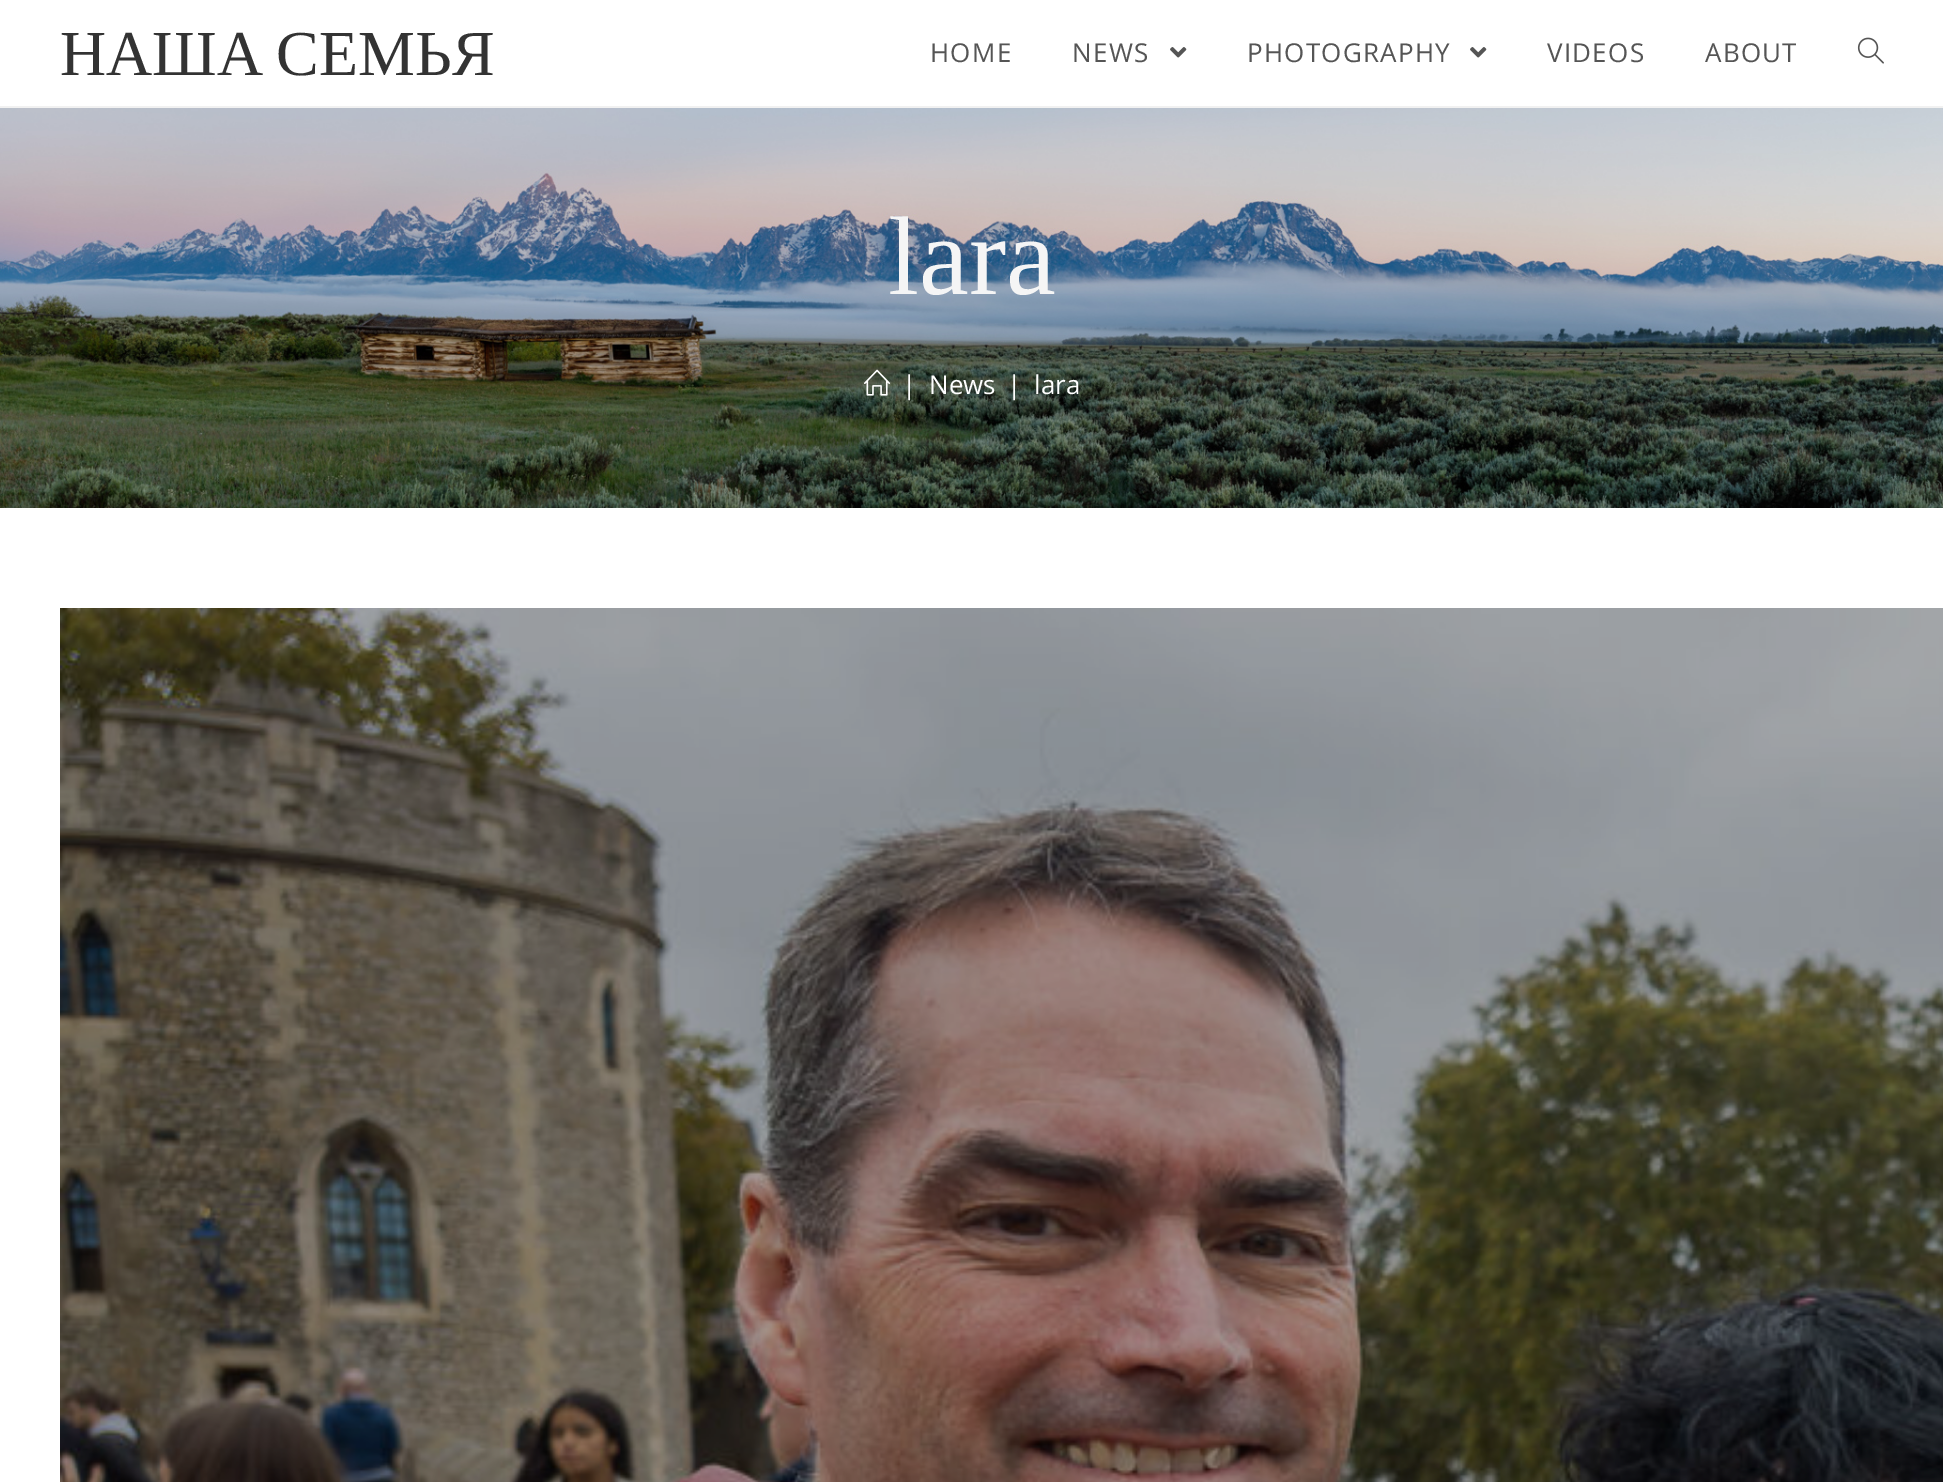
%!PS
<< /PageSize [1943 1482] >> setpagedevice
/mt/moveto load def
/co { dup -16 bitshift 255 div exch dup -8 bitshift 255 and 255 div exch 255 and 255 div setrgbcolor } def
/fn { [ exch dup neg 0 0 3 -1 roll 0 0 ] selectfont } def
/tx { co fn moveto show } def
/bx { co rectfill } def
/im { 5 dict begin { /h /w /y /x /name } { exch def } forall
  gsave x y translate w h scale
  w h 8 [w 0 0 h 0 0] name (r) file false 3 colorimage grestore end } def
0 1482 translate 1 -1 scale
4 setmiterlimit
0 0 1943 1482 16#FFFFFF bx
0 106 1943 2 16#F1F1F1 bx
(media/1.raw) 1170 47 17 11 im
(media/1.raw) 1470 47 17 11 im
(media/2.raw) 1857 37 27 27 im
(media/3.raw) 0 108 1943 400 im
(media/4.raw) 864 369 26 27 im
(media/5.raw) 60 608 1883 874 im
/LiberationSerif-Regular 64 fn
16#333333 co
60 75 mt -3 0 32 (НАША СЕМЬЯ) widthshow
/OpenSans-Regular 26 fn
16#555555 co
930 62 mt 1.25 0 (HOME) ashow
1072 62 mt 1.25 0 (NEWS) ashow
1247 62 mt 1.25 0 (PHOTOGRAPHY) ashow
1547 62 mt 1.25 0 (VIDEOS) ashow
1705 62 mt 1.25 0 (ABOUT) ashow
(lara) 888 294 /LiberationSerif-Regular 112 16#F5F5F5 tx
(|) 902 394 /OpenSans-Regular 26 16#FFFFFF tx
(News) 929 394 /OpenSans-Regular 26 16#FFFFFF tx
(|) 1007 394 /OpenSans-Regular 26 16#FFFFFF tx
(lara) 1034 394 /OpenSans-Regular 26 16#FFFFFF tx
showpage
